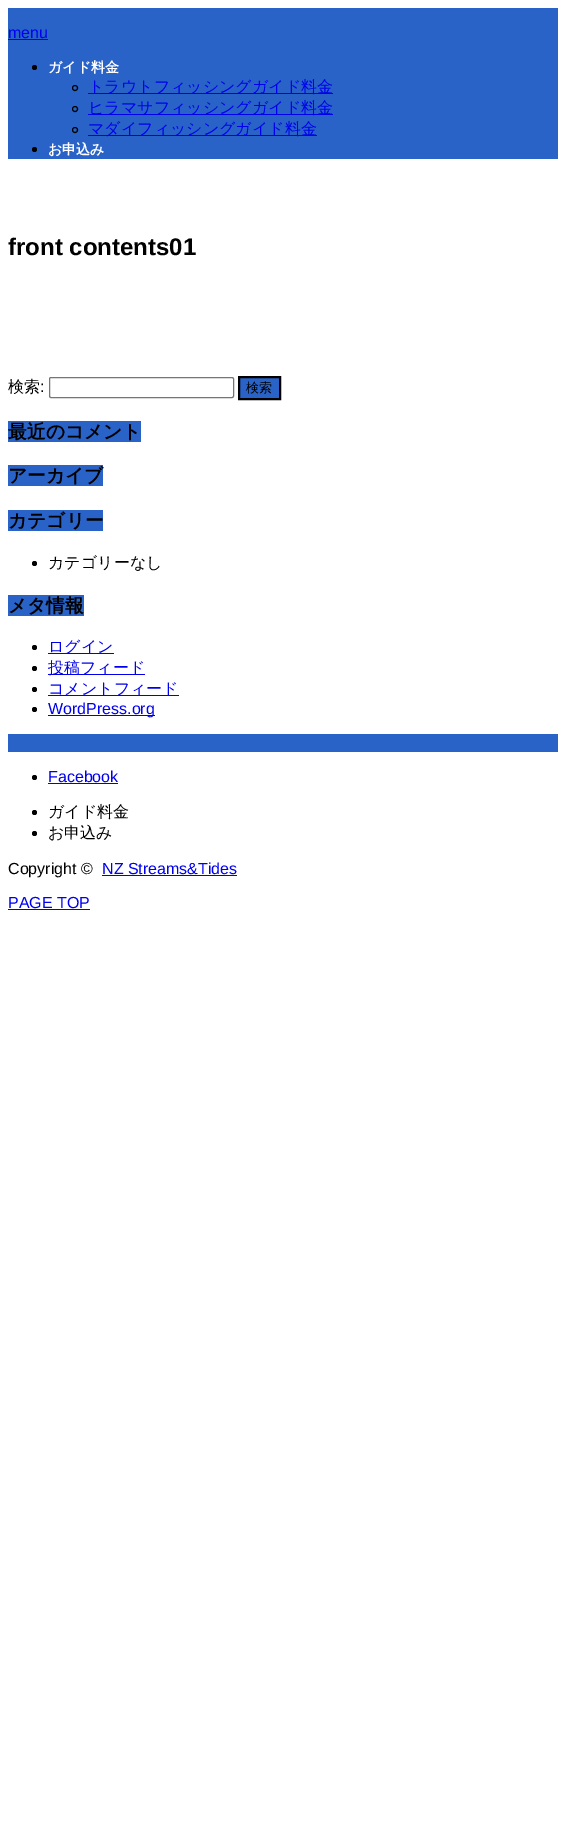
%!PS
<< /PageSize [566 1834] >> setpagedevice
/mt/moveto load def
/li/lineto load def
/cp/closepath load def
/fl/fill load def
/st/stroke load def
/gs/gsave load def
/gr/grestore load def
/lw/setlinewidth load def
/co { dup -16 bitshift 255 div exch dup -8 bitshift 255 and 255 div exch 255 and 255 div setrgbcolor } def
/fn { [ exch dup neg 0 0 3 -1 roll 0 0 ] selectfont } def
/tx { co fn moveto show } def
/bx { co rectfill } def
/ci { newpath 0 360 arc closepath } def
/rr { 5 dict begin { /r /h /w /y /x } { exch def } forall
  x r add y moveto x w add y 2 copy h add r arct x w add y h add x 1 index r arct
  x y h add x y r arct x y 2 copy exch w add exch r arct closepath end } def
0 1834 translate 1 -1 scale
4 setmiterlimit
0 0 566 1834 16#FFFFFF bx
8 8 550 151 16#2963C7 bx
8 39 40 1 16#0000EE bx
16#000000 co
34.5 67.5 2.5 ci fl
75 88 2.5 ci st
88 93 245 1 16#0000EE bx
16#000000 co
75 109 2.5 ci st
88 114 245 1 16#0000EE bx
16#000000 co
75 130 2.5 ci st
88 135 229 1 16#0000EE bx
16#000000 co
34.5 149.5 2.5 ci fl
16#767676 co
49.5 377.5 184 20 1.5 rr st
16#2963C7 co
239 377 mt 280 377 li 280 399 li 239 399 li cp gs fl gr
16#000000 co
2 lw
st
8 421 133 21 16#2963C7 bx
8 465 95 21 16#2963C7 bx
8 510 95 21 16#2963C7 bx
16#000000 co
34.5 563.5 2.5 ci fl
8 595 76 21 16#2963C7 bx
16#000000 co
34.5 647.5 2.5 ci fl
48 653 66 1 16#0000EE bx
16#000000 co
34.5 668.5 2.5 ci fl
48 674 97 1 16#0000EE bx
16#000000 co
34.5 689.5 2.5 ci fl
48 695 131 1 16#0000EE bx
16#000000 co
34.5 709.5 2.5 ci fl
48 715 107 1 16#0000EE bx
8 734 550 18 16#2963C7 bx
16#000000 co
34.5 777.5 2.5 ci fl
48 783 70 1 16#0000EE bx
16#000000 co
34.5 812.5 2.5 ci fl
34.5 833.5 2.5 ci fl
102 875 135 1 16#0000EE bx
8 909 82 1 16#0000EE bx
(menu) 8 38 /LiberationSans-Regular 16 16#0000EE tx
(ガイド料金) 48 72 /WenQuanYiZenHei-Bold 14 16#FFFFFF tx
(トラウトフィッシングガイド料金) 88 92 /WenQuanYiZenHei-Medium 16 16#0000EE tx
(ヒラマサフィッシングガイド料金) 88 113 /WenQuanYiZenHei-Medium 16 16#0000EE tx
(マダイフィッシングガイド料金) 88 134 /WenQuanYiZenHei-Medium 16 16#0000EE tx
(お申込み) 48 154 /WenQuanYiZenHei-Bold 14 16#FFFFFF tx
(front contents01) 8 255 /LiberationSans-Bold 24 16#000000 tx
(検索) 8 392 /WenQuanYiZenHei-Medium 16 16#000000 tx
(:) 40 392 /LiberationSans-Regular 16 16#000000 tx
(検索) 246 392 /WenQuanYiZenHei-Medium 13 16#000000 tx
(最近のコメント) 8 438 /WenQuanYiZenHei-Bold 18.75 16#000000 tx
(アーカイブ) 8 482 /WenQuanYiZenHei-Bold 18.75 16#000000 tx
(カテゴリー) 8 527 /WenQuanYiZenHei-Bold 18.75 16#000000 tx
(カテゴリーなし) 48 568 /WenQuanYiZenHei-Medium 16 16#000000 tx
(メタ情報) 8 612 /WenQuanYiZenHei-Bold 18.75 16#000000 tx
(ログイン) 48 652 /WenQuanYiZenHei-Medium 16 16#0000EE tx
(投稿フィード) 48 673 /WenQuanYiZenHei-Medium 16 16#0000EE tx
(コメントフィード) 48 694 /WenQuanYiZenHei-Medium 16 16#0000EE tx
(WordPress.org) 48 714 /LiberationSans-Regular 16 16#0000EE tx
(Facebook) 48 782 /LiberationSans-Regular 16 16#0000EE tx
(ガイド料金) 48 817 /WenQuanYiZenHei-Medium 16 16#000000 tx
(お申込み) 48 838 /WenQuanYiZenHei-Medium 16 16#000000 tx
(Copyright ©) 8 874 /LiberationSans-Regular 16 16#000000 tx
(NZ Streams&Tides) 102 874 /LiberationSans-Regular 16 16#0000EE tx
(PAGE TOP) 8 908 /LiberationSans-Regular 16 16#0000EE tx
showpage
